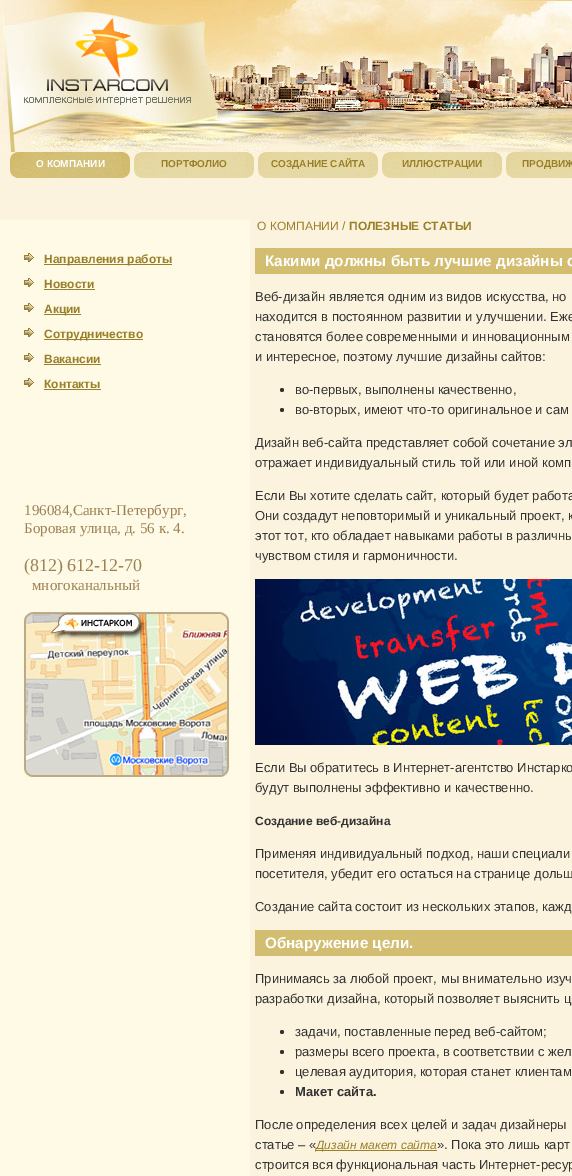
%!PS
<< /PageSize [572 1176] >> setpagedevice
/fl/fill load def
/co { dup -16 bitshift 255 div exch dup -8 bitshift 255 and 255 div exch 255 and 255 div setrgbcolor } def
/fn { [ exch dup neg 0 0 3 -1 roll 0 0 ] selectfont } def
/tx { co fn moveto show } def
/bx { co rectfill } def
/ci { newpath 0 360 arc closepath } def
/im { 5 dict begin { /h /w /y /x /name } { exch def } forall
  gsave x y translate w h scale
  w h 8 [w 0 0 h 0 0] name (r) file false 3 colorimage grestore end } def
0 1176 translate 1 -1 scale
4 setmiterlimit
0 0 572 1176 16#FCF3DE bx
(media/1.raw) 0 0 572 152 im
(media/2.raw) 24 18 167 87 im
(media/3.raw) 10 152 120 26 im
(media/4.raw) 134 152 120 26 im
(media/4.raw) 258 152 120 26 im
(media/4.raw) 382 152 120 26 im
(media/5.raw) 506 152 66 26 im
0 220 250 956 16#FFFAE6 bx
(media/6.raw) 24 253 10 9 im
44 264 128 1 16#997F27 bx
(media/6.raw) 24 278 10 9 im
44 289 51 1 16#997F27 bx
(media/6.raw) 24 303 10 9 im
44 314 37 1 16#997F27 bx
(media/6.raw) 24 328 10 9 im
44 339 99 1 16#997F27 bx
(media/6.raw) 24 353 10 9 im
44 364 57 1 16#997F27 bx
(media/6.raw) 24 378 10 9 im
44 389 57 1 16#997F27 bx
(media/7.raw) 24 612 205 165 im
255 248 317 26 16#D3BD71 bx
16#333333 co
282 390 2 ci fl
282 410 2 ci fl
(media/8.raw) 255 579 317 166 im
255 930 317 26 16#D3BD71 bx
16#333333 co
282 1032 2 ci fl
282 1052 2 ci fl
282 1072 2 ci fl
282 1092 2 ci fl
316 1150 121 1 16#997F27 bx
(О КОМПАНИИ) 36 167 /LiberationSans-Bold 10 16#FFFFFF tx
(ПОРТФОЛИО) 161 167 /LiberationSans-Bold 10 16#997F27 tx
(СОЗДАНИЕ САЙТА) 271 167 /LiberationSans-Bold 10 16#997F27 tx
(ИЛЛЮСТРАЦИИ) 402 167 /LiberationSans-Bold 10 16#997F27 tx
(ПРОДВИЖ) 522 167 /LiberationSans-Bold 10 16#997F27 tx
(Направления работы) 44 263 /LiberationSans-Bold 12 16#997F27 tx
(Новости) 44 288 /LiberationSans-Bold 12 16#997F27 tx
(Акции) 44 313 /LiberationSans-Bold 12 16#997F27 tx
(Сотрудничество) 44 338 /LiberationSans-Bold 12 16#997F27 tx
(Вакансии) 44 363 /LiberationSans-Bold 12 16#997F27 tx
(Контакты) 44 388 /LiberationSans-Bold 12 16#997F27 tx
(196084,Санкт-Петербург,) 24 515 /LiberationSerif-Regular 15 16#9C8154 tx
(Боровая улица, д. 56 к. 4.) 24 533 /LiberationSerif-Regular 15 16#9C8154 tx
(\(812\) 612-12-70) 24 571 /LiberationSerif-Regular 18 16#9C8154 tx
(многоканальный) 32 590 /LiberationSerif-Regular 15 16#9C8154 tx
(О КОМПАНИИ /) 257 230 /LiberationSans-Regular 12 16#997F27 tx
(ПОЛЕЗНЫЕ СТАТЬИ) 349 230 /LiberationSans-Bold 12 16#997F27 tx
(Какими должны быть лучшие дизайны с) 265 266 /LiberationSans-Bold 15.25 16#FFFFFF tx
(Веб-дизайн является одним из видов искусства, но) 255 301 /LiberationSans-Regular 13 16#333333 tx
(находится в постоянном развитии и улучшении. Еже) 255 321 /LiberationSans-Regular 13 16#333333 tx
(становятся более современными и инновационным) 255 341 /LiberationSans-Regular 13 16#333333 tx
(и интересное, поэтому лучшие дизайны сайтов:) 255 361 /LiberationSans-Regular 13 16#333333 tx
(во-первых, выполнены качественно,) 295 394 /LiberationSans-Regular 13 16#333333 tx
(во-вторых, имеют что-то оригинальное и сам) 295 414 /LiberationSans-Regular 13 16#333333 tx
(Дизайн веб-сайта представляет собой сочетание эл) 255 447 /LiberationSans-Regular 13 16#333333 tx
(отражает индивидуальный стиль той или иной комп) 255 467 /LiberationSans-Regular 13 16#333333 tx
(Если Вы хотите сделать сайт, который будет работа) 255 500 /LiberationSans-Regular 13 16#333333 tx
(Они создадут неповторимый и уникальный проект, к) 255 520 /LiberationSans-Regular 13 16#333333 tx
(этот тот, кто обладает навыками работы в различны) 255 540 /LiberationSans-Regular 13 16#333333 tx
(чувством стиля и гармоничности.) 255 560 /LiberationSans-Regular 13 16#333333 tx
(Если Вы обратитесь в Интернет-агентство Инстарко) 255 772 /LiberationSans-Regular 13 16#333333 tx
(будут выполнены эффективно и качественно.) 255 792 /LiberationSans-Regular 13 16#333333 tx
(Создание веб-дизайна) 255 825 /LiberationSans-Bold 12 16#333333 tx
(Применяя индивидуальный подход, наши специали) 255 858 /LiberationSans-Regular 13 16#333333 tx
(посетителя, убедит его остаться на странице дольш) 255 878 /LiberationSans-Regular 13 16#333333 tx
(Создание сайта состоит из нескольких этапов, кажд) 255 911 /LiberationSans-Regular 13 16#333333 tx
(Обнаружение цели.) 265 948 /LiberationSans-Bold 15.25 16#FFFFFF tx
(Принимаясь за любой проект, мы внимательно изуч) 255 983 /LiberationSans-Regular 13 16#333333 tx
(разработки дизайна, который позволяет выяснить ц) 255 1003 /LiberationSans-Regular 13 16#333333 tx
(задачи, поставленные перед веб-сайтом;) 295 1036 /LiberationSans-Regular 13 16#333333 tx
(размеры всего проекта, в соответствии с жел) 295 1056 /LiberationSans-Regular 13 16#333333 tx
(целевая аудитория, которая станет клиентам) 295 1076 /LiberationSans-Regular 13 16#333333 tx
(Макет сайта.) 295 1096 /LiberationSans-Bold 13 16#333333 tx
(После определения всех целей и задач дизайнеры) 255 1129 /LiberationSans-Regular 13 16#333333 tx
(статье – «) 255 1149 /LiberationSans-Regular 13 16#333333 tx
(Дизайн макет сайта) 316 1149 /LiberationSans-Italic 12 16#997F27 tx
(». Пока это лишь карт) 437 1149 /LiberationSans-Regular 13 16#333333 tx
(строится вся функциональная часть Интернет-ресур) 255 1169 /LiberationSans-Regular 13 16#333333 tx
showpage
